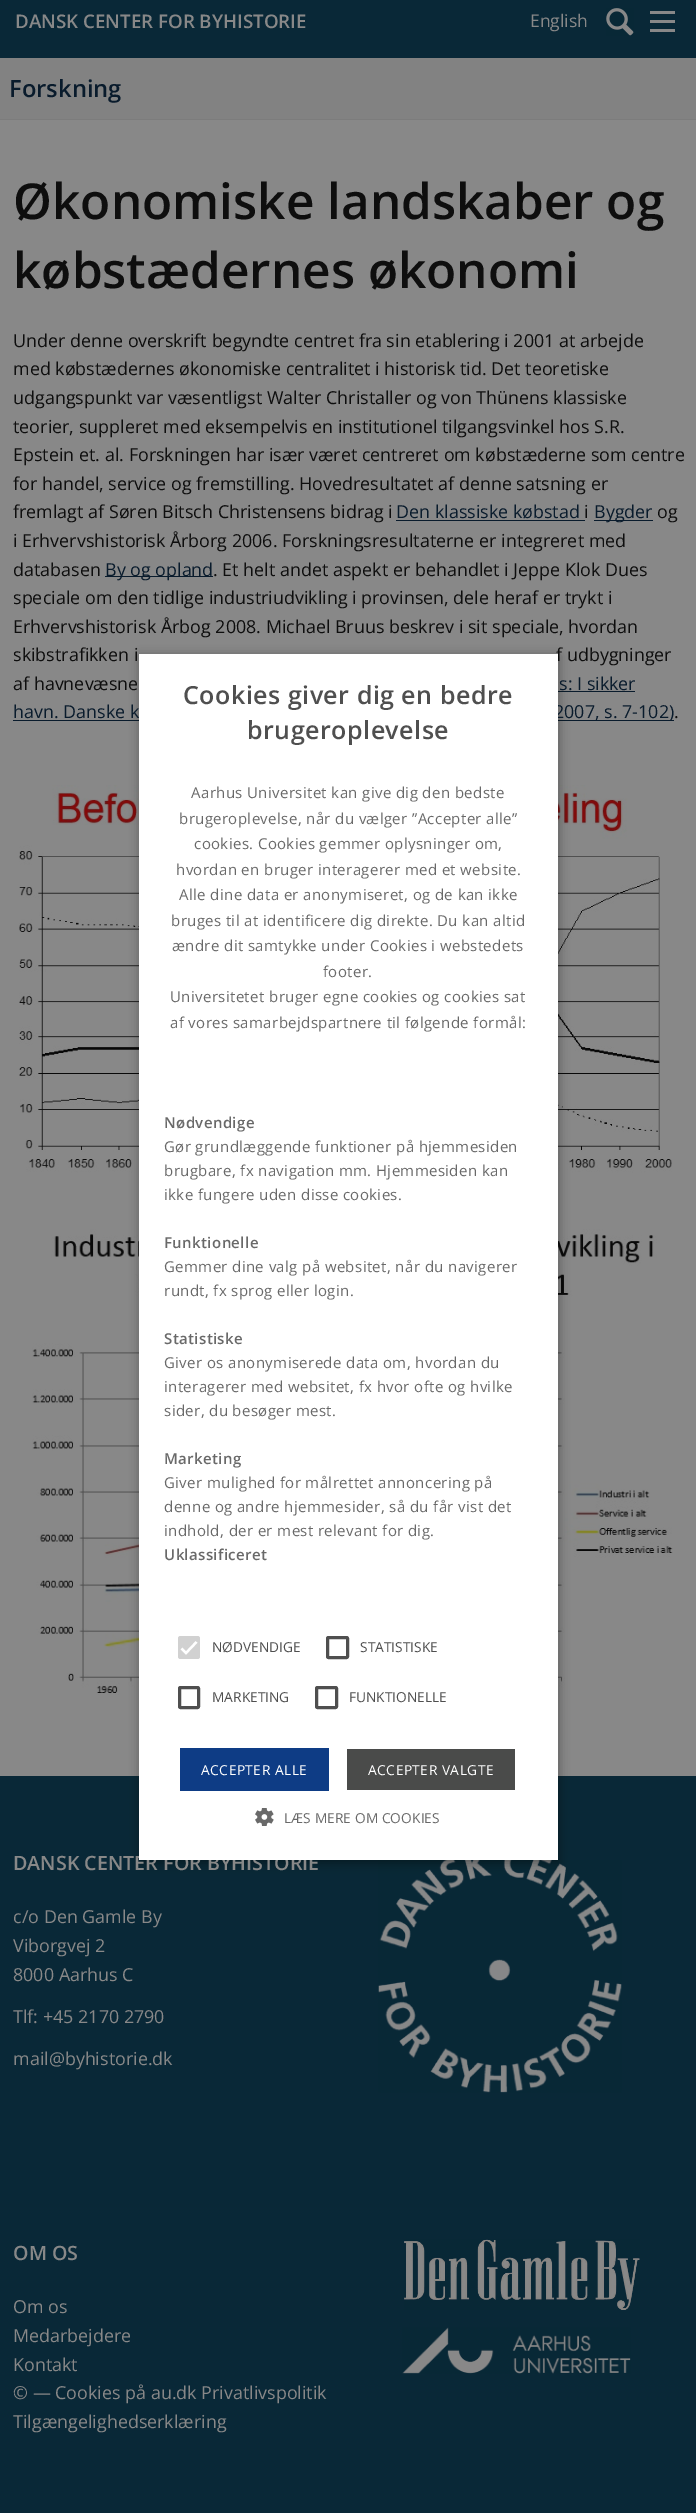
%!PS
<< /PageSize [696 2513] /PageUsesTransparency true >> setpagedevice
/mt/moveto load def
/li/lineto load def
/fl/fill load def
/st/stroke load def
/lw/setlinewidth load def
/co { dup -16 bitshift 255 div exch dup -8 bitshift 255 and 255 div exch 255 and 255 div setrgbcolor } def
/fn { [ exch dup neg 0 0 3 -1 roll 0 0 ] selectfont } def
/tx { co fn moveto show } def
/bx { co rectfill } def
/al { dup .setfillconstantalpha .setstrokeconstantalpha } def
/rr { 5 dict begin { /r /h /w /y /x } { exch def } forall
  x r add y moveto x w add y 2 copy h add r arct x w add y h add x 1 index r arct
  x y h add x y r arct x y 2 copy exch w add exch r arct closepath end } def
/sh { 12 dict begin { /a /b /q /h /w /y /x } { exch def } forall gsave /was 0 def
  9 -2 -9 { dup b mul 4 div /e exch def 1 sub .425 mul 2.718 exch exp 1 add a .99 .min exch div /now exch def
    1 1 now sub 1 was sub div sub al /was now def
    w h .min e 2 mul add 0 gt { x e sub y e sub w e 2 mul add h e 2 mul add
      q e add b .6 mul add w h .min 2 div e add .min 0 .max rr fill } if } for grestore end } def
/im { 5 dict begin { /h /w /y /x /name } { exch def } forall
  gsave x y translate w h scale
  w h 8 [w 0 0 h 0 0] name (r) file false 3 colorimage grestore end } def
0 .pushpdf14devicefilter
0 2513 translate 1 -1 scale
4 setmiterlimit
0 0 696 2513 16#888888 bx
0 0 696 58 16#092837 bx
(media/1.raw) 606 8 28 28 im
0 58 696 61 16#828282 bx
650 29 25 3 16#888888 bx
650 20 25 3 16#888888 bx
650 11 25 3 16#888888 bx
0 119 696 1 16#7C7C7C bx
396 520 189 1 16#091B2C bx
594 520 59 1 16#091B2C bx
105 576 108 1 16#091B2C bx
558 691 77 1 16#091B2C bx
13 720 661 1 16#091B2C bx
(media/2.raw) 19 785 653 422 im
(media/3.raw) 32 1229 641 466 im
0 1776 696 737 16#092837 bx
(media/5.raw) 378 1860 244 233 im
16#000000 co
140 656 419 1207 0 5 .35 sh
(media/6.raw) 404 2239 236 71 im
(media/7.raw) 402 2327 229 47 im
(DANSK CENTER FOR BYHISTORIE) 15 28 /OpenSans-SemiBold 18.75 16#888888 tx
(English) 530 27 /OpenSans-Regular 17.5 16#888888 tx
(Forskning) 9 97 /OpenSans-SemiBold 23.75 16#091B2C tx
(Økonomiske landskaber og) 13 219 /OpenSans-SemiBold 49.5 16#0E0E0E tx
(købstædernes økonomi) 13 288 /OpenSans-SemiBold 49.5 16#0E0E0E tx
(Under denne overskrift begyndte centret fra sin etablering i 2001 at arbejde) 13 347 /OpenSans-Regular 17.9 16#0E0E0E tx
(med købstædernes økonomiske centralitet i historisk tid. Det teoretiske) 13 375 /OpenSans-Regular 17.9 16#0E0E0E tx
(udgangspunkt var væsentligst Walter Christaller og von Thünens klassiske) 13 404 /OpenSans-Regular 17.9 16#0E0E0E tx
(teorier, suppleret med eksempelvis en institutionel tilgangsvinkel hos S.R.) 13 433 /OpenSans-Regular 17.9 16#0E0E0E tx
(Epstein et. al. Forskningen har især været centreret om købstæderne som centre) 13 461 /OpenSans-Regular 17.9 16#0E0E0E tx
(for handel, service og fremstilling. Hovedresultatet af denne satsning er) 13 490 /OpenSans-Regular 17.9 16#0E0E0E tx
(fremlagt af Søren Bitsch Christensens bidrag i) 13 518 /OpenSans-Regular 17.9 16#0E0E0E tx
(Den klassiske købstad) 396 518 /OpenSans-Regular 17.9 16#091B2C tx
(i) 584 518 /OpenSans-Regular 17.9 16#0E0E0E tx
(Bygder) 594 518 /OpenSans-Regular 17.9 16#091B2C tx
(og) 657 518 /OpenSans-Regular 17.9 16#0E0E0E tx
(i Erhvervshistorisk Årborg 2006. Forskningsresultaterne er integreret med) 13 547 /OpenSans-Regular 17.9 16#0E0E0E tx
(databasen) 13 576 /OpenSans-Regular 17.9 16#0E0E0E tx
(By og opland) 105 576 /OpenSans-Regular 17.9 16#091B2C tx
(. Et helt andet aspekt er behandlet i Jeppe Klok Dues) 213 576 /OpenSans-Regular 17.9 16#0E0E0E tx
(speciale om den tidlige industriudvikling i provinsen, dele heraf er trykt i) 13 604 /OpenSans-Regular 17.9 16#0E0E0E tx
(Erhvervshistorisk Årbog 2008. Michael Bruus beskrev i sit speciale, hvordan) 13 633 /OpenSans-Regular 17.9 16#0E0E0E tx
(skibstrafikken i) 13 661 /OpenSans-Regular 17.9 16#0E0E0E tx
(f udbygninger) 556 661 /OpenSans-Regular 17.9 16#0E0E0E tx
(af havnevæsne) 13 690 /OpenSans-Regular 17.9 16#0E0E0E tx
(s: I sikker) 559 690 /OpenSans-Regular 17.9 16#091B2C tx
(havn. Danske k) 13 718 /OpenSans-Regular 17.9 16#091B2C tx
(2007, s. 7-102\)) 554 718 /OpenSans-Regular 17.9 16#091B2C tx
(.) 674 718 /OpenSans-Regular 17.9 16#0E0E0E tx
(DANSK CENTER FOR BYHISTORIE) 13 1870 /OpenSans-SemiBold 19.7 16#888888 tx
139 654 419 1206 16#FFFFFF bx
/OpenSans-SemiBold 25 fn
16#4F4F4F co
247 739 mt .5 0 (brugeroplevelse) ashow
183 704 mt .5 0 (Cookies giver dig en bedre) ashow
(media/4.raw) 255 1808 19 18 im
/OpenSans-Regular 13.75 fn
16#696969 co
284 1823 mt .1 0 (LÆS MERE OM COOKIES) ashow
16#4F4F4F co
3 lw
316.5 1687.5 20 20 1 rr st
179.5 1687.5 19 20 1 rr st
327.5 1637.5 20 20 1 rr st
16#D1D1D1 co
178 1636 22 23 2.5 rr fl
16#FFFFFF co
2.3 lw
181.5 1648.5 mt 186 1653 li 196.5 1642 li st
/OpenSans-SemiBold 15 fn
16#696969 co
164 1560 mt .38 0 (Uklassificeret) ashow
/OpenSans-Regular 15 fn
164 1536 mt .38 0 (indhold, der er mest relevant for dig.) ashow
164 1512 mt .38 0 (denne og andre hjemmesider, så du får vist det) ashow
164 1488 mt .38 0 (Giver mulighed for målrettet annoncering på) ashow
/OpenSans-SemiBold 15 fn
164 1464 mt .38 0 (Marketing) ashow
/OpenSans-Regular 15 fn
164 1416 mt .38 0 (sider, du besøger mest.) ashow
164 1392 mt .38 0 (interagerer med websitet, fx hvor ofte og hvilke) ashow
164 1368 mt .38 0 (Giver os anonymiserede data om, hvordan du) ashow
/OpenSans-SemiBold 15 fn
164 1344 mt .38 0 (Statistiske) ashow
/OpenSans-Regular 15 fn
164 1296 mt .38 0 (rundt, fx sprog eller login.) ashow
164 1272 mt .38 0 (Gemmer dine valg på websitet, når du navigerer) ashow
/OpenSans-SemiBold 15 fn
164 1248 mt .38 0 (Funktionelle) ashow
/OpenSans-Regular 15 fn
164 1200 mt .38 0 (ikke fungere uden disse cookies.) ashow
164 1176 mt .38 0 (brugbare, fx navigation mm. Hjemmesiden kan) ashow
164 1152 mt .38 0 (Gør grundlæggende funktioner på hjemmesiden) ashow
/OpenSans-SemiBold 15 fn
164 1128 mt .38 0 (Nødvendige) ashow
/OpenSans-Regular 15 fn
170 1028 mt .38 0 (af vores samarbejdspartnere til følgende formål:) ashow
170 1002 mt .38 0 (Universitetet bruger egne cookies og cookies sat) ashow
323 977 mt .38 0 (footer.) ashow
172 951 mt .38 0 (ændre dit samtykke under Cookies i webstedets) ashow
171 926 mt .38 0 (bruges til at identificere dig direkte. Du kan altid) ashow
179 900 mt .38 0 (Alle dine data er anonymiseret, og de kan ikke) ashow
176 875 mt .38 0 (hvordan en bruger interagerer med et website.) ashow
194 849 mt .38 0 (cookies. Cookies gemmer oplysninger om,) ashow
179 824 mt .38 0 (brugeroplevelse, når du vælger ”Accepter alle”) ashow
191 798 mt .38 0 (Aarhus Universitet kan give dig den bedste) ashow
347 1749 168 41 16#4A4B4A bx
/OpenSans-Regular 13.75 fn
16#FFFFFF co
368 1775 mt .5 0 (ACCEPTER VALGTE) ashow
180 1748 149 43 16#0E3C85 bx
16#FFFFFF co
201 1775 mt .5 0 (ACCEPTER ALLE) ashow
(FUNKTIONELLE) 349 1702 /OpenSans-Regular 13.75 16#4F4F4F tx
(MARKETING) 212 1702 /OpenSans-Regular 13.75 16#4F4F4F tx
(STATISTISKE) 360 1652 /OpenSans-Regular 13.75 16#4F4F4F tx
(NØDVENDIGE) 212 1652 /OpenSans-Regular 13.75 16#4F4F4F tx
(c/o Den Gamle By) 13 1923 /OpenSans-Regular 17.9 16#888888 tx
(Viborgvej 2) 13 1952 /OpenSans-Regular 17.9 16#888888 tx
(8000 Aarhus C) 13 1981 /OpenSans-Regular 17.9 16#888888 tx
(Tlf: +45 2170 2790) 13 2023 /OpenSans-Regular 17.9 16#888888 tx
(mail@byhistorie.dk) 13 2065 /OpenSans-Regular 17.9 16#888888 tx
(OM OS) 13 2260 /OpenSans-SemiBold 19.7 16#888888 tx
(Om os) 13 2313 /OpenSans-Regular 17.9 16#888888 tx
(Medarbejdere) 13 2342 /OpenSans-Regular 17.9 16#888888 tx
(Kontakt) 13 2371 /OpenSans-Regular 17.9 16#888888 tx
(© — Cookies på au.dk Privatlivspolitik) 13 2399 /OpenSans-Regular 17.9 16#888888 tx
(Tilgængelighedserklæring) 13 2428 /OpenSans-Regular 17.9 16#888888 tx
.poppdf14devicefilter showpage
